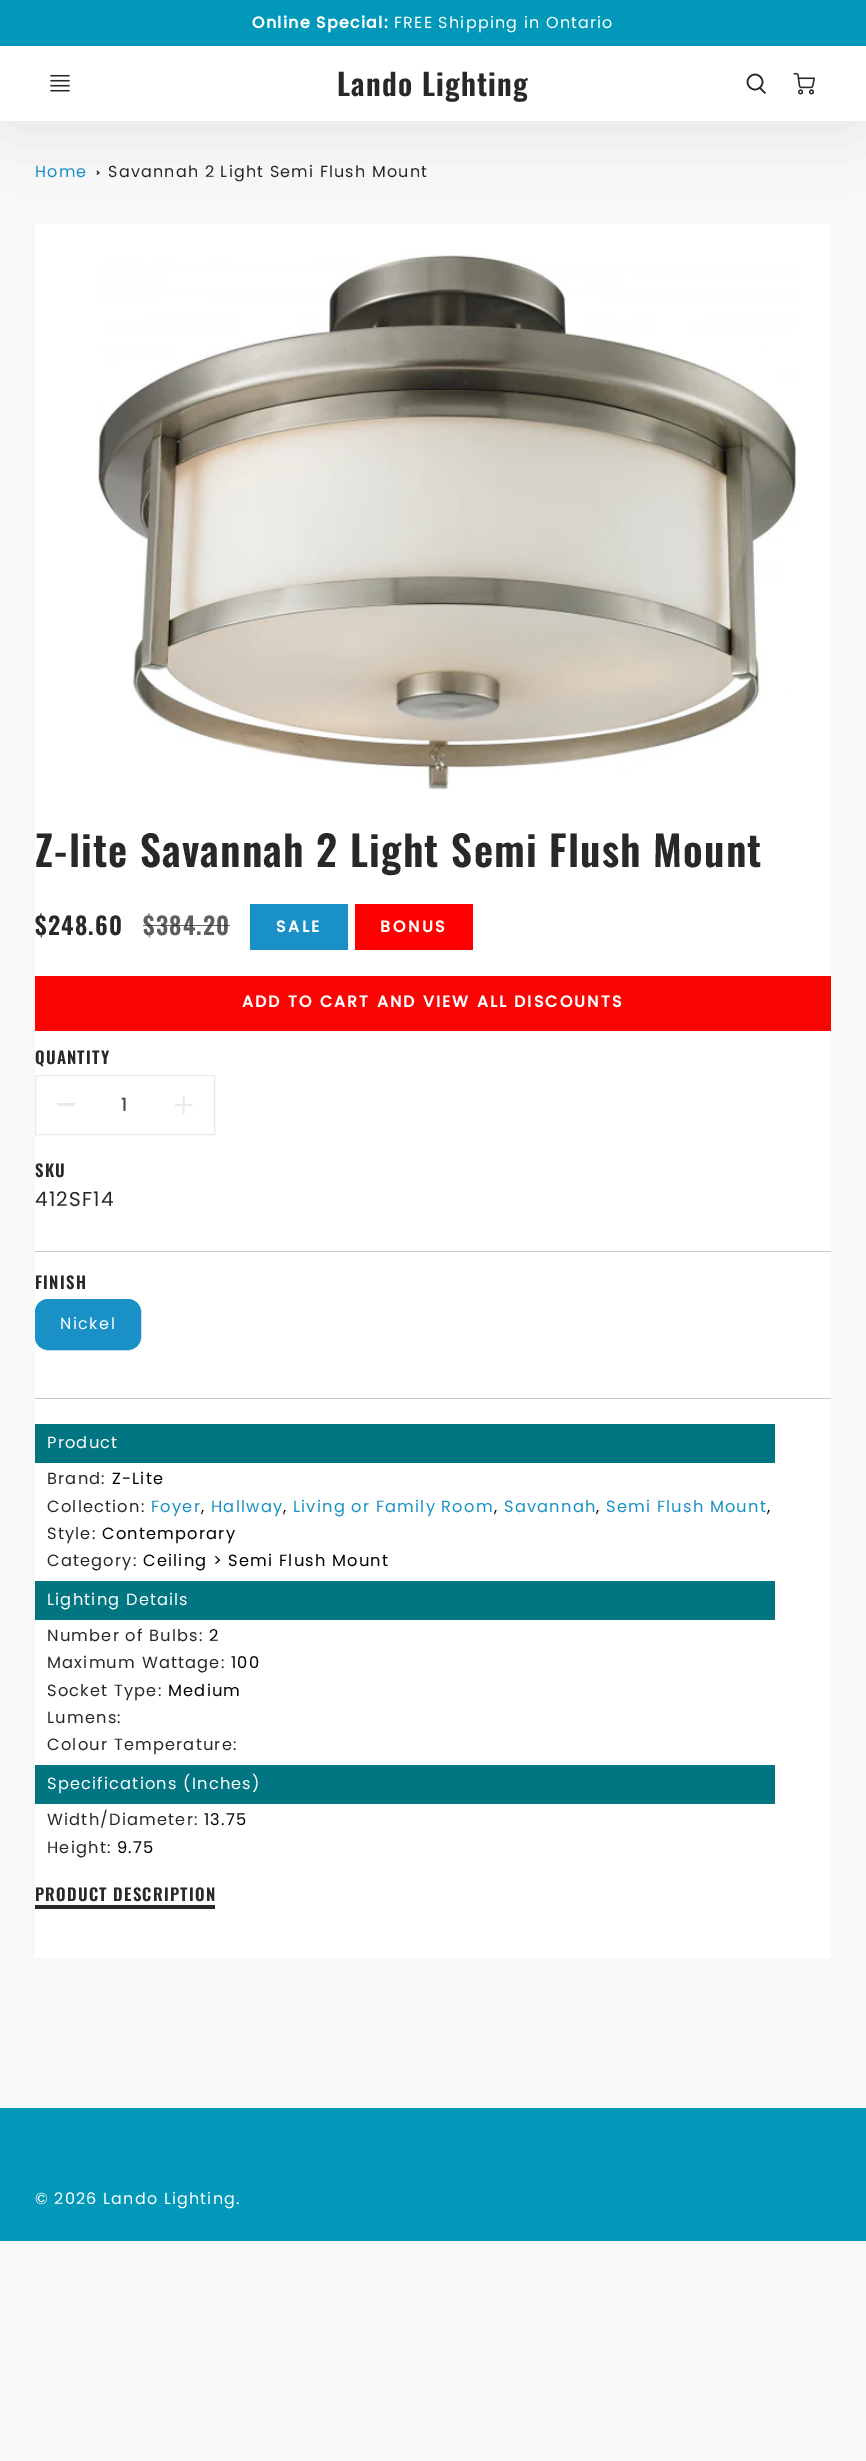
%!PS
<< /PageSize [866 2461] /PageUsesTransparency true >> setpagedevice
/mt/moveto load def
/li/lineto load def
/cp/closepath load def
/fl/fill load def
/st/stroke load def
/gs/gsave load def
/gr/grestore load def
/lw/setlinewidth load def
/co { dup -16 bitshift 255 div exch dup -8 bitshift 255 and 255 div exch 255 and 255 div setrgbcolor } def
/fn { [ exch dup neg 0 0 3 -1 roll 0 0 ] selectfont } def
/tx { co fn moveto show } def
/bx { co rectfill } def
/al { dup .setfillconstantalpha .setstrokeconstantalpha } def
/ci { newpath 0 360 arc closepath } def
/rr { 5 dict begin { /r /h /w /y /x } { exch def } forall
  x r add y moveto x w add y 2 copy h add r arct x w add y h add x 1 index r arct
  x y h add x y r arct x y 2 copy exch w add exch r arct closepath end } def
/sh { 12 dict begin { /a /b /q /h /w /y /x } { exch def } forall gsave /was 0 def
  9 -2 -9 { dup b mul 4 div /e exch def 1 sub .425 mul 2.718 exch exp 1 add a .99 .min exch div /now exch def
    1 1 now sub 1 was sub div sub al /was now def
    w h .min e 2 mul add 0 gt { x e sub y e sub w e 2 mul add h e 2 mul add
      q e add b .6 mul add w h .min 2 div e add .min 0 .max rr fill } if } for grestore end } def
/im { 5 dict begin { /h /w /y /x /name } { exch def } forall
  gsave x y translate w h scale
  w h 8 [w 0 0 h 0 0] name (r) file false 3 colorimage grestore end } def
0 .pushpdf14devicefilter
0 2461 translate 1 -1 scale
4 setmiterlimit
0 0 866 2461 16#F8F8F8 bx
16#282828 co
97.5 170.5 mt 99.5 172.5 li 99 173.5 li 96.5 171.5 li cp fl
99 172 mt 99.5 172.5 li 97.5 175 li 96.5 174 li cp fl
16#292929 co
11 76 842 50 0 31 .1 sh
0 0 866 46 16#0198B9 bx
0 46 866 75 16#FFFFFF bx
(media/1.raw) 50 74 20 18 im
16#292929 co
1.6 lw
755 82 7.5 ci st
1 setlinecap
1 setlinejoin
765 93 mt 760 88 li st
(media/2.raw) 793 72 22 23 im
35 224 796 1734 16#FFFFFF bx
(media/3.raw) 97 255 699 535 im
250 904 98 46 16#1990C6 bx
355 904 118 46 16#FF0000 bx
35 976 796 55 16#FA0404 bx
16#EAEAEA co
1 lw
0 setlinecap
0 setlinejoin
35.5 1075.5 179 59 rectstroke
57 1103 18 3 16#EAEAEA bx
(media/4.raw) 175 1096 18 18 im
35 1251 796 1 16#C9C9C9 bx
16#1990C6 co
35.5 1299.5 105 50 12.5 rr gs fl gr
st
35 1398 796 1 16#C9C9C9 bx
35 1424 740 39 16#017582 bx
35 1581 740 39 16#017582 bx
35 1765 740 39 16#017582 bx
35 1905 180 4 16#292929 bx
0 2108 866 133 16#0198B9 bx
/Poppins-Bold 16 fn
16#FFFFFF co
252 28 mt 1.2 0 (Online Special:) ashow
/Poppins-Regular 16 fn
394 28 mt 1.2 0 (FREE Shipping in Ontario) ashow
/Oswald-SemiBold 30 fn
16#282828 co
337 96 mt 1.2 0 (Lando Lighting) ashow
/Poppins-Regular 16 fn
16#1990C6 co
35 177 mt 1.2 0 (Home) ashow
16#282828 co
108 177 mt 1.2 0 (Savannah 2 Light Semi Flush Mount) ashow
/Oswald-SemiBold 41.5 fn
35 867 mt 1.2 0 (Z-lite Savannah 2 Light Semi Flush Mount) ashow
/Oswald-SemiBold 24 fn
35 935 mt 1.2 0 ($248.60) ashow
16#5E5E5E co
143 935 mt 1.2 0 ($384.20) ashow
0.75 al
143 925 87 1 16#282828 bx
/Poppins-Bold 16 fn
1 al
16#FFFFFF co
276 932 mt 2.5 0 (SALE) ashow
380 932 mt 2.5 0 (BONUS) ashow
242 1007 mt 2 0 (ADD TO CART AND VIEW ALL DISCOUNTS) ashow
/Oswald-SemiBold 16.75 fn
16#282828 co
35 1064 mt 1.2 0 (QUANTITY) ashow
(1) 121 1111 /Poppins-Medium 18 16#484848 tx
/Oswald-SemiBold 16.75 fn
16#282828 co
35 1177 mt 1.2 0 (SKU) ashow
/Poppins-Regular 20 fn
35 1206 mt 1.2 0 (412SF14) ashow
/Oswald-SemiBold 16.75 fn
35 1289 mt 1.2 0 (FINISH) ashow
/Poppins-Regular 16 fn
16#FFFFFF co
60 1329 mt 1.5 0 (Nickel) ashow
/Poppins-Regular 16.25 fn
47 1448 mt 1.2 0 (Product) ashow
16#282828 co
47 1484 mt 1.2 0 (Brand:) ashow
16#000000 co
112 1484 mt 1.2 0 (Z-Lite) ashow
16#282828 co
47 1512 mt 1.2 0 (Collection:) ashow
16#1990C6 co
151 1512 mt 1.2 0 (Foyer) ashow
16#000000 co
201 1512 mt 1.2 0 (,) ashow
16#1990C6 co
211 1512 mt 1.2 0 (Hallway) ashow
16#000000 co
283 1512 mt 1.2 0 (,) ashow
16#1990C6 co
293 1512 mt 1.2 0 (Living or Family Room) ashow
16#000000 co
494 1512 mt 1.2 0 (,) ashow
16#1990C6 co
504 1512 mt 1.2 0 (Savannah) ashow
16#000000 co
596 1512 mt 1.2 0 (,) ashow
16#1990C6 co
606 1512 mt 1.2 0 (Semi Flush Mount) ashow
16#000000 co
767 1512 mt 1.2 0 (,) ashow
16#282828 co
47 1539 mt 1.2 0 (Style:) ashow
16#000000 co
102 1539 mt 1.2 0 (Contemporary) ashow
16#282828 co
47 1566 mt 1.2 0 (Category:) ashow
16#000000 co
143 1566 mt 1.2 0 (Ceiling > Semi Flush Mount) ashow
16#FFFFFF co
47 1605 mt 1.2 0 (Lighting Details) ashow
16#282828 co
47 1641 mt 1.2 0 (Number of Bulbs:) ashow
16#000000 co
209 1641 mt 1.2 0 (2) ashow
16#282828 co
47 1668 mt 1.2 0 (Maximum Wattage:) ashow
16#000000 co
231 1668 mt 1.2 0 (100) ashow
16#282828 co
47 1696 mt 1.2 0 (Socket Type:) ashow
16#000000 co
168 1696 mt 1.2 0 (Medium) ashow
16#282828 co
47 1723 mt 1.2 0 (Lumens:) ashow
47 1750 mt 1.2 0 (Colour Temperature:) ashow
16#FFFFFF co
47 1789 mt 1.2 0 (Specifications \(Inches\)) ashow
16#282828 co
47 1825 mt 1.2 0 (Width/Diameter:) ashow
16#000000 co
204 1825 mt 1.2 0 (13.75) ashow
16#282828 co
47 1853 mt 1.2 0 (Height:) ashow
16#000000 co
117 1853 mt 1.2 0 (9.75) ashow
/Oswald-SemiBold 16.75 fn
16#282828 co
35 1901 mt 1.2 0 (PRODUCT DESCRIPTION) ashow
/Poppins-Regular 16 fn
16#FFFFFF co
35 2204 mt 1.2 0 (© 2026 Lando Lighting.) ashow
.poppdf14devicefilter showpage
